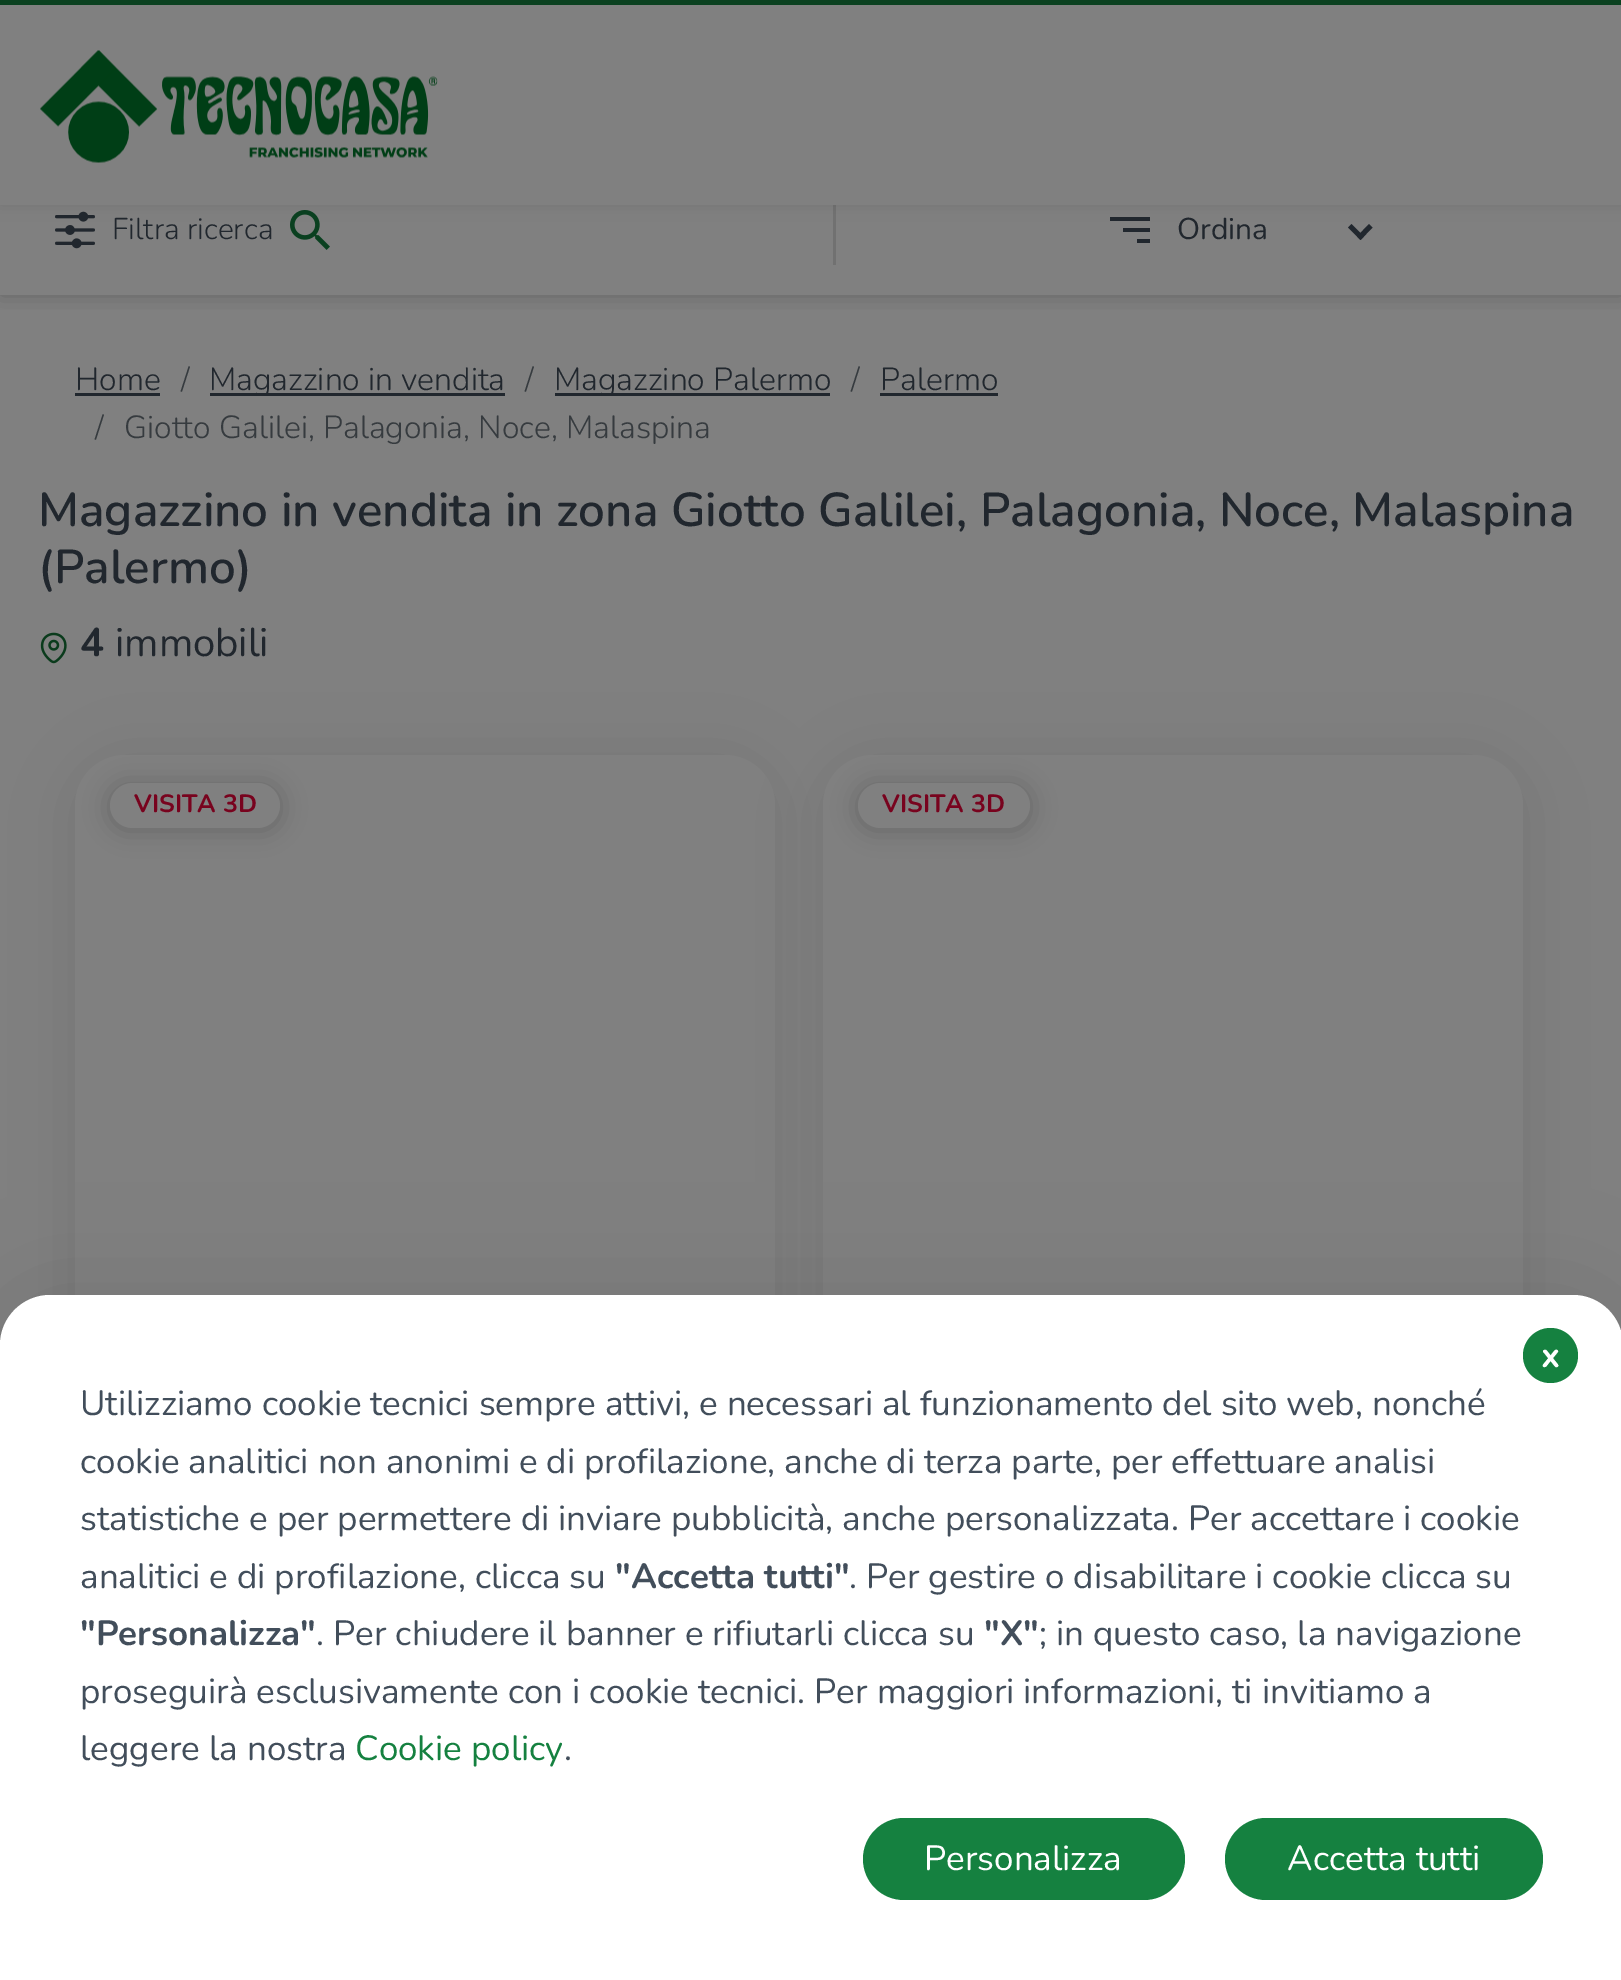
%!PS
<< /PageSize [1621 1980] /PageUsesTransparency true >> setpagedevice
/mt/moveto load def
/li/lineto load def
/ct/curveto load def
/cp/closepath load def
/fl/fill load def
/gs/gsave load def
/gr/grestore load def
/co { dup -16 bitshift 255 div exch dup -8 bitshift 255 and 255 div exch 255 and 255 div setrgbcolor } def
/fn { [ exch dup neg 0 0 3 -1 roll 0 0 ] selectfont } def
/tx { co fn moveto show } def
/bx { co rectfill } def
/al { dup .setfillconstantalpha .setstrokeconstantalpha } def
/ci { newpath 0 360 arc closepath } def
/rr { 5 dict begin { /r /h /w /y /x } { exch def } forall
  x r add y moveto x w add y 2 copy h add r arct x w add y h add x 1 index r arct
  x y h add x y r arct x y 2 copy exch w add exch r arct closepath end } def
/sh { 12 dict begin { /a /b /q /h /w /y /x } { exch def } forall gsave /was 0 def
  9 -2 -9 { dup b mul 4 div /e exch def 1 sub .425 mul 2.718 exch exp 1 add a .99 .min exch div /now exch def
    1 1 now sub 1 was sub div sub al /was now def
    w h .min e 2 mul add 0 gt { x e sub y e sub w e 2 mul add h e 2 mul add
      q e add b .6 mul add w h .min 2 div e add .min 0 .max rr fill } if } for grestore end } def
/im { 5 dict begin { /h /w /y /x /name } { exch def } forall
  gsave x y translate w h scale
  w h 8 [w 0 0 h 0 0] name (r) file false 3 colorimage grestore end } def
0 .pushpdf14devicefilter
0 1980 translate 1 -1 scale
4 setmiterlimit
0 0 1621 1980 16#808080 bx
gs
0 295 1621 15 rectclip
16#000000 co
0 150 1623 145 0 11 .23 sh
gr
833 205 3 60 16#717171 bx
(media/2.raw) 55 211 40 38 im
(media/3.raw) 290 210 40 40 im
16#21272E co
1150 243 mt 1137 243 li 1137 239 li 1150 239 li cp 1150 217 mt 1150 221 li 1110 221 li 1110 217 li cp 1150 232 mt 1123 232 li 1123 228 li 1150 228 li cp fl
1369 224 mt 1372.5 227.5 li 1360.5 240 li 1357 236.5 li cp fl
1351.5 224 mt 1364 236.5 li 1360.5 240 li 1348 227.5 li cp fl
16#000000 co
0 0 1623 205 0 7.5 .1 sh
0 5 1621 200 16#808080 bx
0 0 1621 5 16#0B4120 bx
(media/1.raw) 40 50 398 113 im
(media/4.raw) 40 632 27 32 im
75 393 85 3 16#21272E bx
210 393 295 3 16#21272E bx
555 393 275 3 16#21272E bx
880 393 118 3 16#21272E bx
16#000000 co
75 760 700 923 50 30 .1 sh
16#808080 co
75 755 700 923 50 rr fl
16#000000 co
110 785 170 45 22.5 12.5 .2 sh
16#808080 co
110 783 170 45 22.5 rr fl
16#000000 co
823 760 700 923 50 30 .1 sh
16#808080 co
823 755 700 923 50 rr fl
16#000000 co
858 785 172 45 22.5 12.5 .2 sh
16#808080 co
858 783 172 45 22.5 rr fl
16#000000 co
0 1295 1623 685 50 50 .1 sh
16#FFFFFF co
50 1295 mt 1573 1295 li 1600.5 1295 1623 1317.5 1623 1345 ct 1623 1980 li 0 1980 li 0 1345 li 0 1317.5 22.5 1295 50 1295 ct cp fl
16#158140 co
1550.5 1355.5 27.5 ci fl
863 1818 322 82 41 rr fl
1225 1818 318 82 41 rr fl
(Filtra ricerca) 112 239 /Nunito-Light 30 16#21272E tx
(Ordina) 1177 239 /Nunito-Regular 30 16#21272E tx
(4) 80 656 /Nunito-Bold 40 16#21272E tx
(immobili) 115 656 /Nunito-Regular 40 16#21272E tx
(Home) 75 390 /Nunito-Light 32 16#21272E tx
(/) 181 390 /Nunito-Light 32 16#363B3F tx
(Magazzino in vendita) 209 390 /Nunito-Light 32 16#21272E tx
(/) 525 390 /Nunito-Light 32 16#363B3F tx
(Magazzino Palermo) 554 390 /Nunito-Light 32 16#21272E tx
(/) 851 390 /Nunito-Light 32 16#363B3F tx
(Palermo) 880 390 /Nunito-Light 32 16#21272E tx
(/) 95 438 /Nunito-Light 32 16#363B3F tx
(Giotto Galilei, Palagonia, Noce, Malaspina) 124 438 /Nunito-Light 32 16#363B3F tx
(Magazzino in vendita in zona Giotto Galilei, Palagonia, Noce, Malaspina) 38 526 /Nunito-SemiBold 47.5 16#21272E tx
(\(Palermo\)) 38 583 /Nunito-SemiBold 47.5 16#21272E tx
(VISITA 3D) 134 812 /Nunito-Bold 25 16#78031E tx
(VISITA 3D) 882 812 /Nunito-Bold 25 16#78031E tx
(x) 1541 1367 /Nunito-Bold 35 16#FFFFFF tx
(Utilizziamo cookie tecnici sempre attivi, e necessari al funzionamento del sito web, nonché) 80 1415 /Nunito-Regular 35 16#424E5B tx
(cookie analitici non anonimi e di profilazione, anche di terza parte, per effettuare analisi) 80 1473 /Nunito-Regular 35 16#424E5B tx
(statistiche e per permettere di inviare pubblicità, anche personalizzata. Per accettare i cookie) 80 1530 /Nunito-Regular 35 16#424E5B tx
(analitici e di profilazione, clicca su) 80 1588 /Nunito-Regular 35 16#424E5B tx
("Accetta tutti") 615 1588 /Nunito-Bold 35 16#424E5B tx
(. Per gestire o disabilitare i cookie clicca su) 849 1588 /Nunito-Regular 35 16#424E5B tx
("Personalizza") 80 1645 /Nunito-Bold 35 16#424E5B tx
(. Per chiudere il banner e rifiutarli clicca su) 316 1645 /Nunito-Regular 35 16#424E5B tx
("X") 984 1645 /Nunito-Bold 35 16#424E5B tx
(; in questo caso, la navigazione) 1039 1645 /Nunito-Regular 35 16#424E5B tx
(proseguirà esclusivamente con i cookie tecnici. Per maggiori informazioni, ti invitiamo a) 80 1703 /Nunito-Regular 35 16#424E5B tx
(leggere la nostra) 80 1760 /Nunito-Regular 35 16#424E5B tx
(Cookie policy) 355 1760 /Nunito-Regular 35 16#158140 tx
(.) 564 1760 /Nunito-Regular 35 16#424E5B tx
(Personalizza) 924 1870 /Nunito-Regular 35 16#FFFFFF tx
(Accetta tutti) 1287 1870 /Nunito-Regular 35 16#FFFFFF tx
.poppdf14devicefilter showpage
